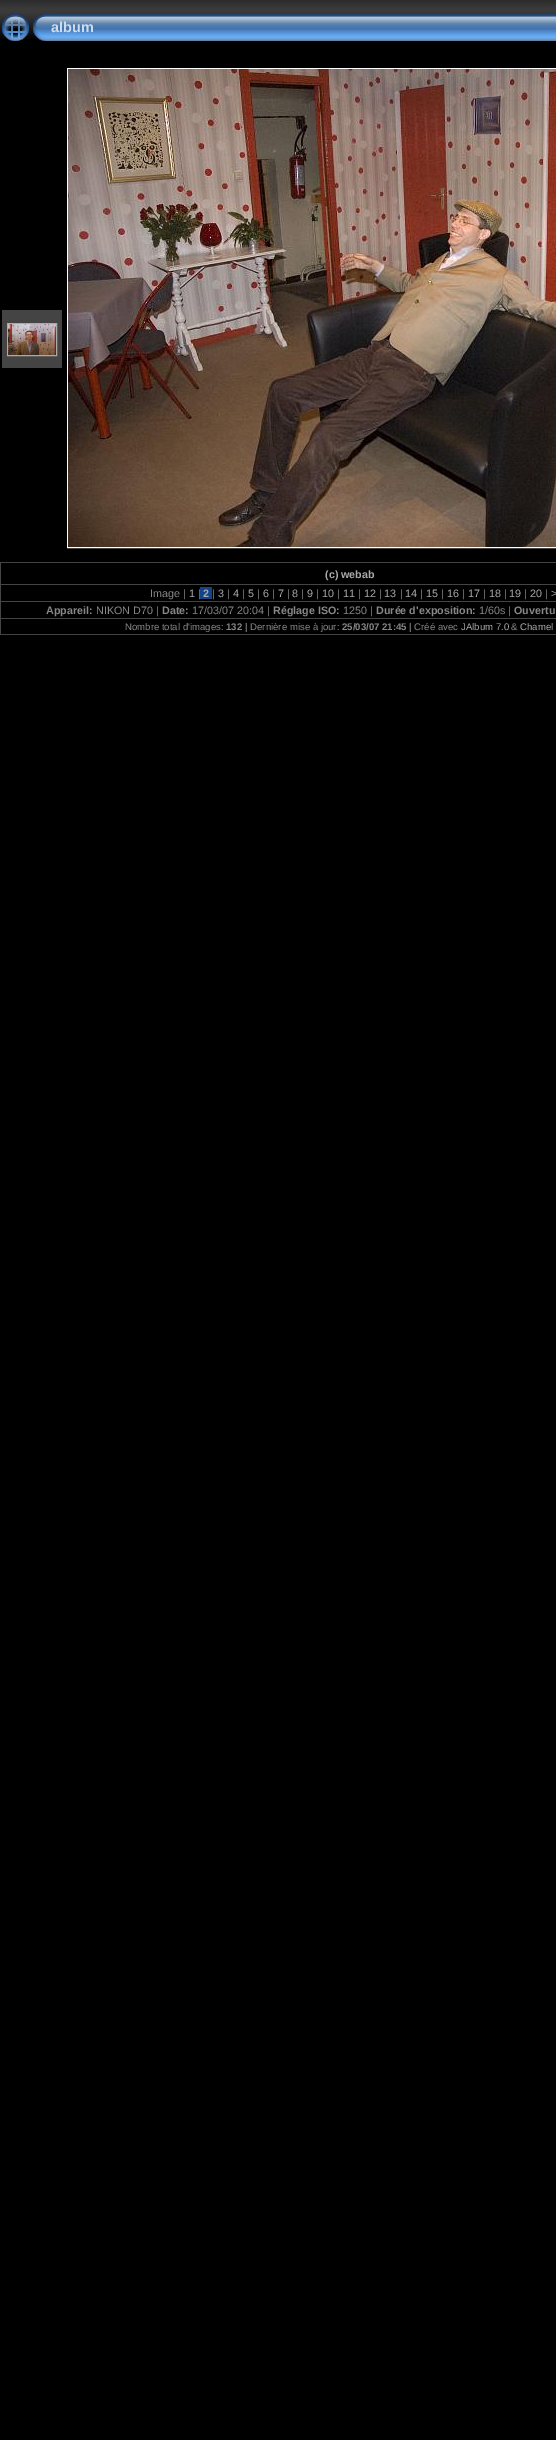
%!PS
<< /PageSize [556 2440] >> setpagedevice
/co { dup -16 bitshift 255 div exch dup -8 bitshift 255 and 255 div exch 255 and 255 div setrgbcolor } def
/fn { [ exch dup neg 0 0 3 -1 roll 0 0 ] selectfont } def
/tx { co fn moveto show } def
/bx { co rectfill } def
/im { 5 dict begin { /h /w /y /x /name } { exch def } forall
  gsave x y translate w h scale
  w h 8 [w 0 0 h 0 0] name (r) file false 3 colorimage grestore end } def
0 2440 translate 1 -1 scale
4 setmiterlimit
0 0 556 2440 16#000000 bx
(media/1.raw) 0 0 556 39 im
(media/2.raw) 2 14 27 27 im
(media/3.raw) 33 14 18 27 im
(media/4.raw) 51 14 505 27 im
2 310 60 58 16#444444 bx
16#AAAAAA co
7.5 323.5 49 32 rectstroke
(media/5.raw) 8 324 48 31 im
16#FFFFFF co
67.5 68.5 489 479 rectstroke
(media/6.raw) 68 69 488 478 im
0 562 556 1 16#444444 bx
0 634 556 1 16#444444 bx
0 562 1 73 16#444444 bx
0 584 556 1 16#444444 bx
200 587 12 12 16#114488 bx
0 601 556 1 16#444444 bx
0 618 556 1 16#444444 bx
(album) 51 32 /LiberationSans-Bold 14.5 16#CCDCEE tx
(\(c\) webab) 325 578 /LiberationSans-Bold 10.75 16#AAAAAA tx
(Image |) 150 597 /LiberationSans-Regular 10.75 16#888888 tx
(1) 189 597 /LiberationSans-Regular 10.75 16#AAAAAA tx
(|) 198 597 /LiberationSans-Regular 10.75 16#888888 tx
(2) 203 597 /LiberationSans-Bold 10.75 16#AAAAAA tx
(|) 212 597 /LiberationSans-Regular 10.75 16#888888 tx
(3) 218 597 /LiberationSans-Regular 10.75 16#AAAAAA tx
(|) 227 597 /LiberationSans-Regular 10.75 16#888888 tx
(4) 233 597 /LiberationSans-Regular 10.75 16#AAAAAA tx
(|) 242 597 /LiberationSans-Regular 10.75 16#888888 tx
(5) 248 597 /LiberationSans-Regular 10.75 16#AAAAAA tx
(|) 257 597 /LiberationSans-Regular 10.75 16#888888 tx
(6) 263 597 /LiberationSans-Regular 10.75 16#AAAAAA tx
(|) 272 597 /LiberationSans-Regular 10.75 16#888888 tx
(7) 278 597 /LiberationSans-Regular 10.75 16#AAAAAA tx
(|) 287 597 /LiberationSans-Regular 10.75 16#888888 tx
(8) 292 597 /LiberationSans-Regular 10.75 16#AAAAAA tx
(|) 301 597 /LiberationSans-Regular 10.75 16#888888 tx
(9) 307 597 /LiberationSans-Regular 10.75 16#AAAAAA tx
(|) 316 597 /LiberationSans-Regular 10.75 16#888888 tx
(10) 322 597 /LiberationSans-Regular 10.75 16#AAAAAA tx
(|) 337 597 /LiberationSans-Regular 10.75 16#888888 tx
(11) 343 597 /LiberationSans-Regular 10.75 16#AAAAAA tx
(|) 358 597 /LiberationSans-Regular 10.75 16#888888 tx
(12) 364 597 /LiberationSans-Regular 10.75 16#AAAAAA tx
(|) 379 597 /LiberationSans-Regular 10.75 16#888888 tx
(13) 384 597 /LiberationSans-Regular 10.75 16#AAAAAA tx
(|) 400 597 /LiberationSans-Regular 10.75 16#888888 tx
(14) 405 597 /LiberationSans-Regular 10.75 16#AAAAAA tx
(|) 420 597 /LiberationSans-Regular 10.75 16#888888 tx
(15) 426 597 /LiberationSans-Regular 10.75 16#AAAAAA tx
(|) 441 597 /LiberationSans-Regular 10.75 16#888888 tx
(16) 447 597 /LiberationSans-Regular 10.75 16#AAAAAA tx
(|) 462 597 /LiberationSans-Regular 10.75 16#888888 tx
(17) 468 597 /LiberationSans-Regular 10.75 16#AAAAAA tx
(|) 483 597 /LiberationSans-Regular 10.75 16#888888 tx
(18) 489 597 /LiberationSans-Regular 10.75 16#AAAAAA tx
(|) 504 597 /LiberationSans-Regular 10.75 16#888888 tx
(19) 509 597 /LiberationSans-Regular 10.75 16#AAAAAA tx
(|) 524 597 /LiberationSans-Regular 10.75 16#888888 tx
(20) 530 597 /LiberationSans-Regular 10.75 16#AAAAAA tx
(|) 545 597 /LiberationSans-Regular 10.75 16#888888 tx
(>) 551 597 /LiberationSans-Regular 10.75 16#AAAAAA tx
(Appareil:) 46 614 /LiberationSans-Bold 10.75 16#888888 tx
(NIKON D70 |) 96 614 /LiberationSans-Regular 10.75 16#888888 tx
(Date:) 162 614 /LiberationSans-Bold 10.75 16#888888 tx
(17/03/07 20:04 |) 192 614 /LiberationSans-Regular 10.75 16#888888 tx
(Réglage ISO:) 273 614 /LiberationSans-Bold 10.75 16#888888 tx
(1250 |) 343 614 /LiberationSans-Regular 10.75 16#888888 tx
(Durée d'exposition:) 376 614 /LiberationSans-Bold 10.75 16#888888 tx
(1/60s |) 479 614 /LiberationSans-Regular 10.75 16#888888 tx
(Ouvertu) 514 614 /LiberationSans-Bold 10.75 16#888888 tx
(Nombre total d'images:) 125 630 /LiberationSans-Regular 9.6 16#888888 tx
(132) 226 630 /LiberationSans-Bold 9.6 16#888888 tx
(| Dernière mise à jour:) 245 630 /LiberationSans-Regular 9.6 16#888888 tx
(25/03/07 21:45) 342 630 /LiberationSans-Bold 9.6 16#888888 tx
(| Créé avec) 409 630 /LiberationSans-Regular 9.6 16#888888 tx
(JAlbum 7.0) 461 630 /LiberationSans-Regular 9.6 16#AAAAAA tx
(&) 511 630 /LiberationSans-Regular 9.6 16#888888 tx
(Chamel) 520 630 /LiberationSans-Regular 9.6 16#AAAAAA tx
showpage
